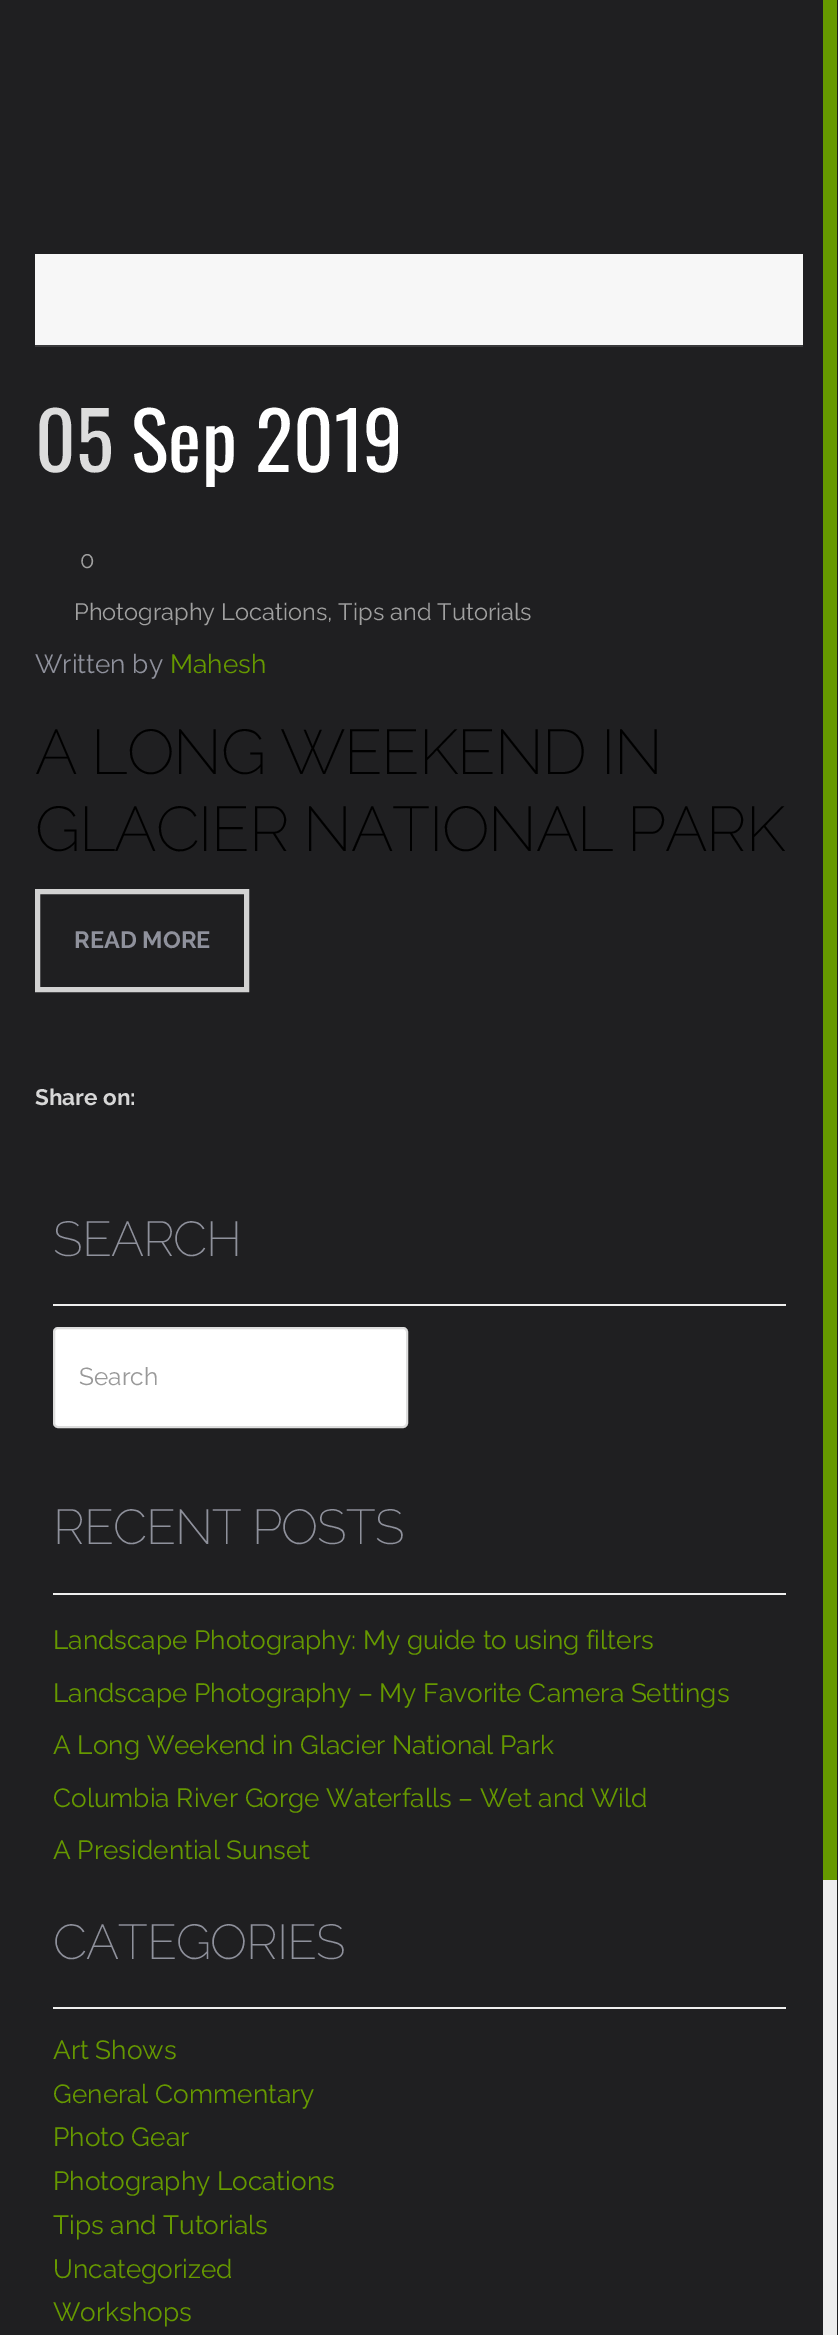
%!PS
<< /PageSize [838 2335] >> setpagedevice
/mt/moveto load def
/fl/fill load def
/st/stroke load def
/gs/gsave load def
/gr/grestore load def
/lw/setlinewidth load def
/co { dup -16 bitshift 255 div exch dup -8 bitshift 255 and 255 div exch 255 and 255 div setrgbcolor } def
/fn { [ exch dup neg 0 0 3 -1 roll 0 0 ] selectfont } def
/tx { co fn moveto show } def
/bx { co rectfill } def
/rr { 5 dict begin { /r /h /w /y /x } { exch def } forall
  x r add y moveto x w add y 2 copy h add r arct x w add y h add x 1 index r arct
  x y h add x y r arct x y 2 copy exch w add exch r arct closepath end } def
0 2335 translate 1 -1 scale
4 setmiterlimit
0 0 838 2335 16#1F1F21 bx
35 254 768 91 16#F7F7F7 bx
35 345 768 2 16#3A3A3C bx
16#D2D2D2 co
5 lw
37.5 891.5 209 98 rectstroke
53 1304 733 2 16#EEEEEE bx
16#FFFFFF co
54 1328 353 99 4 rr gs fl gr
16#DDDDDD co
2 lw
st
53 1593 733 2 16#EEEEEE bx
53 2007 733 2 16#EEEEEE bx
823 1880 14 455 16#EEEEEE bx
823 0 14 1880 16#669900 bx
(05) 35 472 /Oswald-Regular 79 16#DDDDDD tx
(Sep 2019) 131 472 /Oswald-Regular 79 16#FFFFFF tx
(0) 80 568 /Raleway-Regular 23.6 16#A0A0A0 tx
(Photography Locations, Tips and Tutorials) 74 620 /Raleway-Regular 23.6 16#A0A0A0 tx
(Written by) 35 673 /Raleway-Regular 26.25 16#8F919C tx
(Mahesh) 170 673 /Raleway-Regular 26.25 16#669900 tx
/Raleway-ExtraLight 63 fn
16#000000 co
35 774 mt -1.25 0 (A LONG WEEKEND IN) ashow
35 851 mt -1.25 0 (GLACIER NATIONAL PARK) ashow
(READ MORE) 74 948 /Raleway-Bold 23.6 16#8F919C tx
(Share on:) 35 1105 /Raleway-Bold 22.5 16#D7D7D7 tx
/Raleway-ExtraLight 49 fn
16#8F919C co
53 1256 mt -1 0 (SEARCH) ashow
(Search) 79 1385 /Raleway-Regular 24.5 16#999999 tx
/Raleway-ExtraLight 49 fn
16#8F919C co
53 1544 mt -1 0 (RECENT POSTS) ashow
(Landscape Photography: My guide to using filters) 53 1649 /Raleway-Regular 26.25 16#669900 tx
(Landscape Photography – My Favorite Camera Settings) 53 1702 /Raleway-Regular 26.25 16#669900 tx
(A Long Weekend in Glacier National Park) 53 1754 /Raleway-Regular 26.25 16#669900 tx
(Columbia River Gorge Waterfalls – Wet and Wild) 53 1807 /Raleway-Regular 26.25 16#669900 tx
(A Presidential Sunset) 53 1859 /Raleway-Regular 26.25 16#669900 tx
/Raleway-ExtraLight 49 fn
16#8F919C co
53 1959 mt -1 0 (CATEGORIES) ashow
(Art Shows) 53 2059 /Raleway-Regular 26.25 16#669900 tx
(General Commentary) 53 2103 /Raleway-Regular 26.25 16#669900 tx
(Photo Gear) 53 2146 /Raleway-Regular 26.25 16#669900 tx
(Photography Locations) 53 2190 /Raleway-Regular 26.25 16#669900 tx
(Tips and Tutorials) 53 2234 /Raleway-Regular 26.25 16#669900 tx
(Uncategorized) 53 2278 /Raleway-Regular 26.25 16#669900 tx
(Workshops) 53 2321 /Raleway-Regular 26.25 16#669900 tx
showpage
